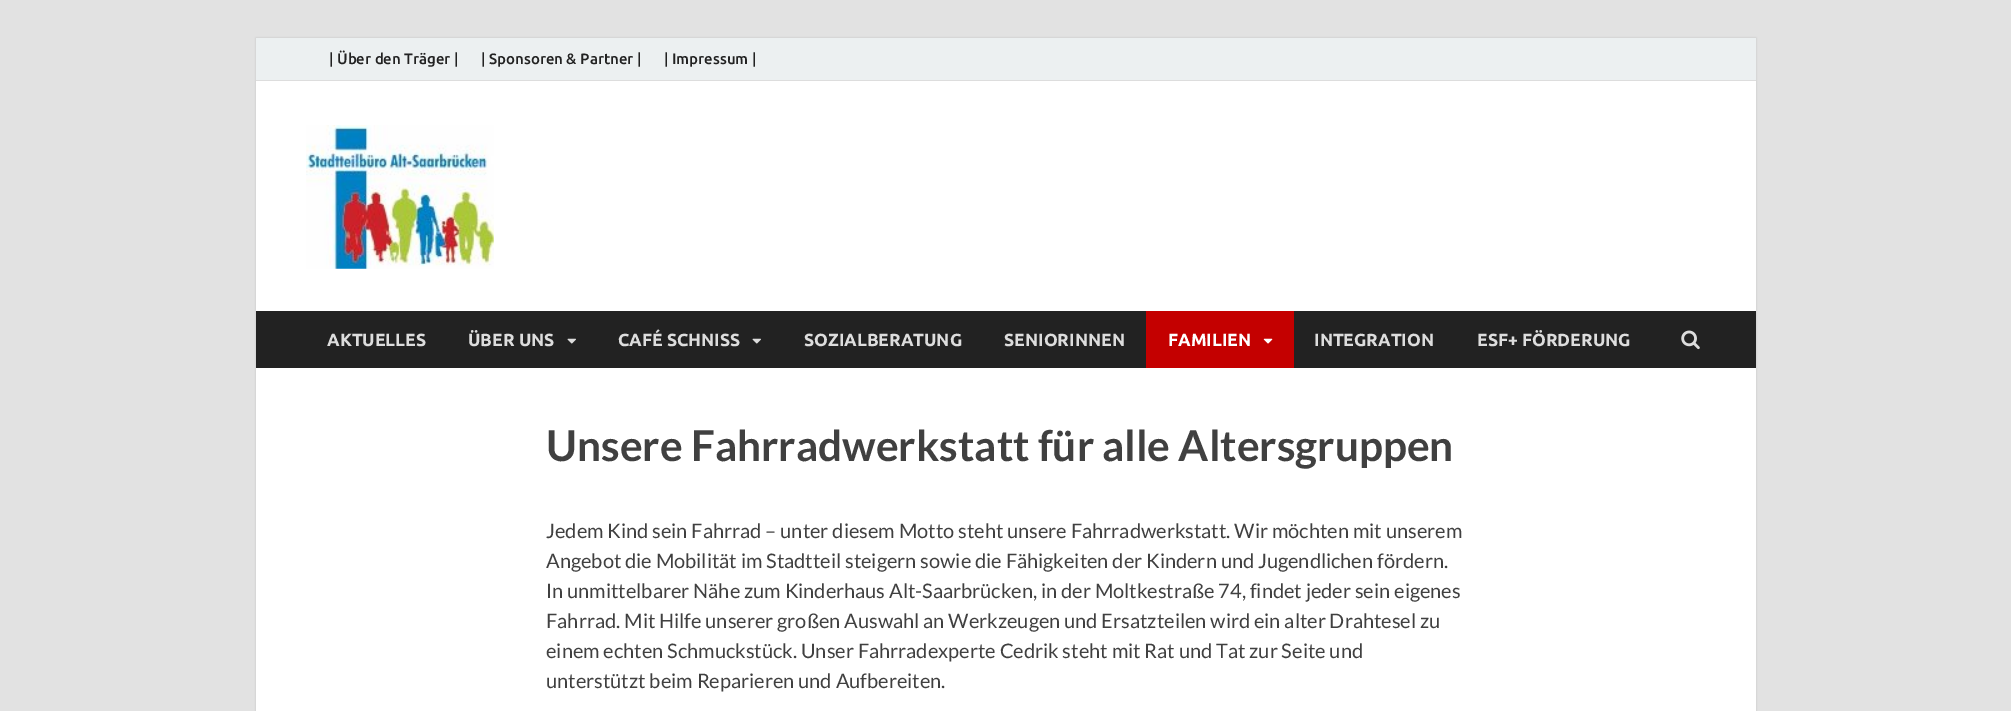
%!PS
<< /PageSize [2011 711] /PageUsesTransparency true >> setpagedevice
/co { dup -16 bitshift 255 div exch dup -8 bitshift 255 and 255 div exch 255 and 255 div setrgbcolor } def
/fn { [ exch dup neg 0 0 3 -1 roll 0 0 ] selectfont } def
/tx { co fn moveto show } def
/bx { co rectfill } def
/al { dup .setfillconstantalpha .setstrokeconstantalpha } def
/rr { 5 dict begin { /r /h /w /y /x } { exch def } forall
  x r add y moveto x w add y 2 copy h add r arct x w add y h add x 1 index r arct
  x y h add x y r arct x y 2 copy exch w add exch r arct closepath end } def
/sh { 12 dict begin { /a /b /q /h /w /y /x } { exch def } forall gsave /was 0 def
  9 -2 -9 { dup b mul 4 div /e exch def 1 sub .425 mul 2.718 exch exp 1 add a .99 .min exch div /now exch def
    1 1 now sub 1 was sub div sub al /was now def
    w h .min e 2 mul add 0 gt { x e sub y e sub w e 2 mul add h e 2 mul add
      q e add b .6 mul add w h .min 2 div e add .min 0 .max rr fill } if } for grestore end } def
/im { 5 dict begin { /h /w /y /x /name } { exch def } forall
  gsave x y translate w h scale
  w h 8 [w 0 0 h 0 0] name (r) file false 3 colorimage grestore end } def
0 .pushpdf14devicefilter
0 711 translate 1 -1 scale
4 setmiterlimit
0 0 2011 711 16#E2E2E2 bx
16#BBBBBB co
256 38 1500 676 0 1 1 sh
256 81 1500 630 16#FFFFFF bx
256 38 1500 42 16#ECF0F1 bx
256 80 1500 1 16#DDDDDD bx
(media/1.raw) 306 125 188 144 im
256 311 1500 57 16#222222 bx
(media/2.raw) 567 338 9 6 im
(media/2.raw) 752 338 9 6 im
1146 311 148 57 16#C40000 bx
(media/3.raw) 1263 338 10 6 im
(media/4.raw) 1681 330 19 20 im
(| Über den Träger |) 329 64 /Ubuntu-Medium 15 16#222222 tx
(| Sponsoren & Partner |) 481 64 /Ubuntu-Medium 15 16#222222 tx
(| Impressum |) 664 64 /Ubuntu-Medium 15 16#222222 tx
(AKTUELLES) 327 346 /Ubuntu-Bold 17.5 16#DDDDDD tx
(ÜBER UNS) 468 346 /Ubuntu-Bold 17.5 16#DDDDDD tx
(CAFÉ SCHNISS) 618 346 /Ubuntu-Bold 17.5 16#DDDDDD tx
(SOZIALBERATUNG) 804 346 /Ubuntu-Bold 17.5 16#DDDDDD tx
(SENIORINNEN) 1004 346 /Ubuntu-Bold 17.5 16#DDDDDD tx
(FAMILIEN) 1168 346 /Ubuntu-Bold 17.5 16#FFFFFF tx
(INTEGRATION) 1314 346 /Ubuntu-Bold 17.5 16#DDDDDD tx
(ESF+ FÖRDERUNG) 1477 346 /Ubuntu-Bold 17.5 16#DDDDDD tx
(Unsere Fahrradwerkstatt für alle Altersgruppen) 546 461 /Lato-Bold 42.5 16#404040 tx
(Jedem Kind sein Fahrrad – unter diesem Motto steht unsere Fahrradwerkstatt. Wir möchten mit unserem) 546 538 /Lato-Regular 20 16#404040 tx
(Angebot die Mobilität im Stadtteil steigern sowie die Fähigkeiten der Kindern und Jugendlichen fördern.) 546 568 /Lato-Regular 20 16#404040 tx
(In unmittelbarer Nähe zum Kinderhaus Alt-Saarbrücken, in der Moltkestraße 74, findet jeder sein eigenes) 546 598 /Lato-Regular 20 16#404040 tx
(Fahrrad. Mit Hilfe unserer großen Auswahl an Werkzeugen und Ersatzteilen wird ein alter Drahtesel zu) 546 628 /Lato-Regular 20 16#404040 tx
(einem echten Schmuckstück. Unser Fahrradexperte Cedrik steht mit Rat und Tat zur Seite und) 546 658 /Lato-Regular 20 16#404040 tx
(unterstützt beim Reparieren und Aufbereiten.) 546 688 /Lato-Regular 20 16#404040 tx
.poppdf14devicefilter showpage
